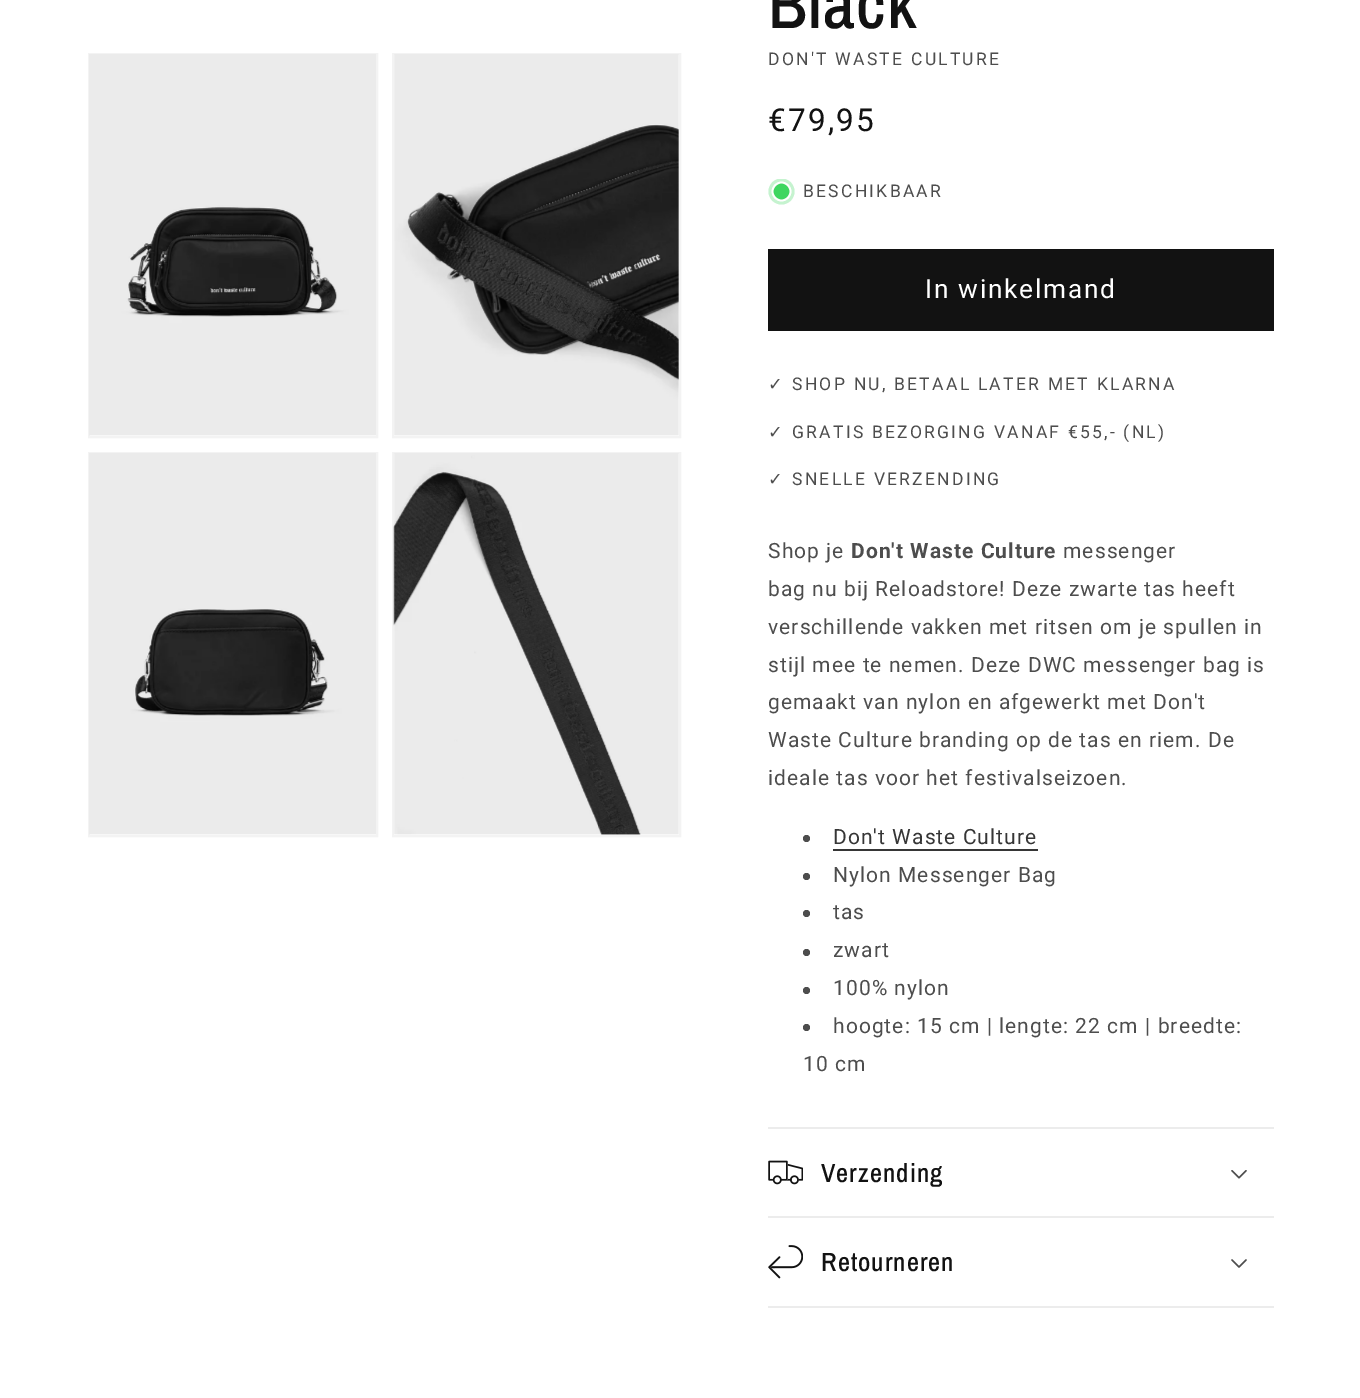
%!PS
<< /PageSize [1360 1398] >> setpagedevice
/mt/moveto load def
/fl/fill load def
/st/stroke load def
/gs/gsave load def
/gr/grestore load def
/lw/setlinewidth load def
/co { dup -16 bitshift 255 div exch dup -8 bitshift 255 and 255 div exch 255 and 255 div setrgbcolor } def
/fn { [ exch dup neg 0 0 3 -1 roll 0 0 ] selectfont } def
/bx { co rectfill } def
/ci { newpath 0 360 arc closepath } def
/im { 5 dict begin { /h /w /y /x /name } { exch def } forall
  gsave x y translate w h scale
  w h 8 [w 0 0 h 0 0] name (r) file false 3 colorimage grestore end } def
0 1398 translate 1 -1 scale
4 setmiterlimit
0 0 1360 1398 16#FFFFFF bx
16#F3F3F3 co
2 lw
89 54 288 383 rectstroke
(media/1.raw) 89 54 287 382 im
393 54 287 383 rectstroke
(media/2.raw) 394 54 285 382 im
89 453 288 383 rectstroke
(media/3.raw) 89 453 287 382 im
393 453 287 383 rectstroke
(media/4.raw) 393 453 286 382 im
gs
768 179 27 26 rectclip
16#C5F3CF co
781.5 191.5 13 ci fl
gr
16#3ED660 co
781.5 191.5 9 ci gs fl gr
16#FFFFFF co
1.8 lw
st
768 249 506 82 16#121212 bx
16#4D4D4D co
806.5 838.5 3.5 ci fl
833 849 205 2 16#363636 bx
16#4D4D4D co
806.5 876.5 3.5 ci fl
806.5 913.5 3.5 ci fl
806.5 952.5 3.5 ci fl
806.5 990.5 3.5 ci fl
806.5 1027.5 3.5 ci fl
768 1127 506 2 16#ECECEC bx
768 1216 506 2 16#ECECEC bx
(media/5.raw) 768 1160 35 25 im
(media/6.raw) 1231 1170 16 9 im
768 1306 506 2 16#ECECEC bx
(media/7.raw) 768 1245 35 34 im
(media/8.raw) 1231 1259 16 9 im
/ArchivoNarrow-Medium 70 fn
16#121212 co
768 28 mt 1.05 0 (Black) ashow
/Roboto-Regular 17.5 fn
16#4D4D4D co
768 65 mt 2.25 0 (DON'T WASTE CULTURE) ashow
/Roboto-Regular 31.5 fn
16#121212 co
768 131 mt 2.25 0 (€79,95) ashow
/Roboto-Regular 17.5 fn
16#4D4D4D co
803 197 mt 2.25 0 (BESCHIKBAAR) ashow
/Roboto-Regular 26.25 fn
16#FFFFFF co
925 298 mt 1.75 0 (In winkelmand) ashow
/DejaVuSans-Regular 17.5 fn
16#4D4D4D co
768 390 mt 2.25 0 (✓) ashow
/Roboto-Regular 17.5 fn
792 390 mt 2.25 0 (SHOP NU, BETAAL LATER MET KLARNA) ashow
/DejaVuSans-Regular 17.5 fn
768 438 mt 2.25 0 (✓) ashow
/Roboto-Regular 17.5 fn
792 438 mt 2.25 0 (GRATIS BEZORGING VANAF €55,- \(NL\)) ashow
/DejaVuSans-Regular 17.5 fn
768 485 mt 2.25 0 (✓) ashow
/Roboto-Regular 17.5 fn
792 485 mt 2.25 0 (SNELLE VERZENDING) ashow
/Roboto-Regular 21 fn
768 558 mt 1.05 0 (Shop je) ashow
/Roboto-Bold 21 fn
851 558 mt 1.05 0 (Don't Waste Culture) ashow
/Roboto-Regular 21 fn
1063 558 mt 1.05 0 (messenger) ashow
768 596 mt 1.05 0 (bag nu bij Reloadstore! Deze zwarte tas heeft) ashow
768 634 mt 1.05 0 (verschillende vakken met ritsen om je spullen in) ashow
768 672 mt 1.05 0 (stijl mee te nemen. Deze DWC messenger bag is) ashow
768 709 mt 1.05 0 (gemaakt van nylon en afgewerkt met Don't) ashow
768 747 mt 1.05 0 (Waste Culture branding op de tas en riem. De) ashow
768 785 mt 1.05 0 (ideale tas voor het festivalseizoen.) ashow
16#363636 co
833 844 mt 1.05 0 (Don't Waste Culture) ashow
16#4D4D4D co
833 882 mt 1.05 0 (Nylon Messenger Bag) ashow
833 919 mt 1.05 0 (tas) ashow
833 957 mt 1.05 0 (zwart) ashow
833 995 mt 1.05 0 (100% nylon) ashow
833 1033 mt 1.05 0 (hoogte: 15 cm | lengte: 22 cm | breedte:) ashow
803 1071 mt 1.05 0 (10 cm) ashow
/ArchivoNarrow-Medium 26.25 fn
16#121212 co
821 1182 mt 1.05 0 (Verzending) ashow
821 1271 mt 1.05 0 (Retourneren) ashow
showpage
